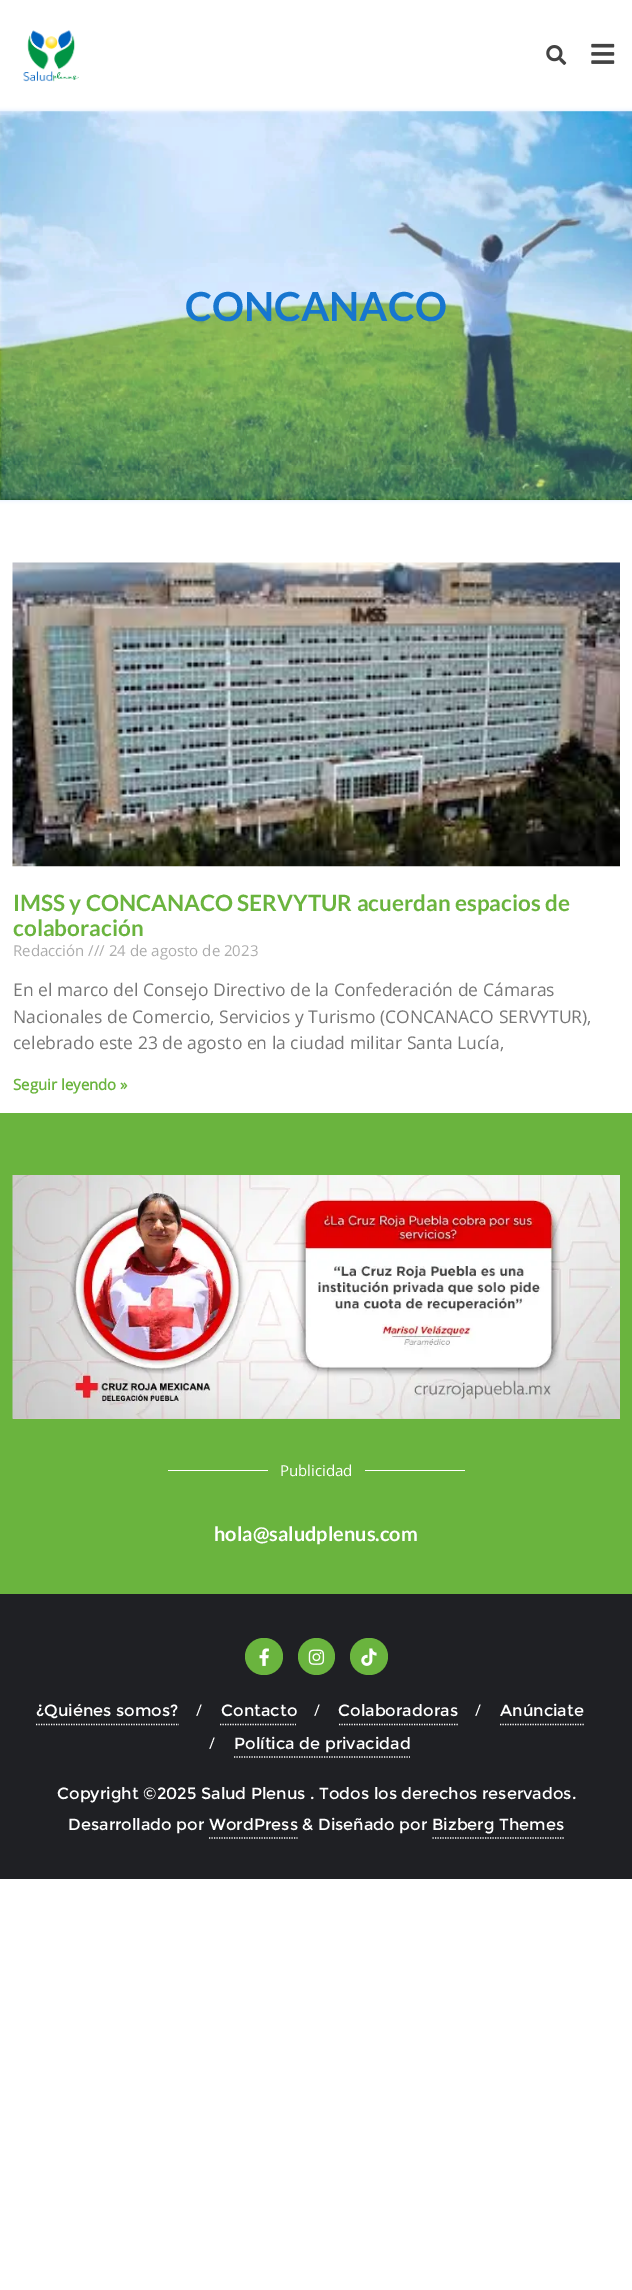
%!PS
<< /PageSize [632 2290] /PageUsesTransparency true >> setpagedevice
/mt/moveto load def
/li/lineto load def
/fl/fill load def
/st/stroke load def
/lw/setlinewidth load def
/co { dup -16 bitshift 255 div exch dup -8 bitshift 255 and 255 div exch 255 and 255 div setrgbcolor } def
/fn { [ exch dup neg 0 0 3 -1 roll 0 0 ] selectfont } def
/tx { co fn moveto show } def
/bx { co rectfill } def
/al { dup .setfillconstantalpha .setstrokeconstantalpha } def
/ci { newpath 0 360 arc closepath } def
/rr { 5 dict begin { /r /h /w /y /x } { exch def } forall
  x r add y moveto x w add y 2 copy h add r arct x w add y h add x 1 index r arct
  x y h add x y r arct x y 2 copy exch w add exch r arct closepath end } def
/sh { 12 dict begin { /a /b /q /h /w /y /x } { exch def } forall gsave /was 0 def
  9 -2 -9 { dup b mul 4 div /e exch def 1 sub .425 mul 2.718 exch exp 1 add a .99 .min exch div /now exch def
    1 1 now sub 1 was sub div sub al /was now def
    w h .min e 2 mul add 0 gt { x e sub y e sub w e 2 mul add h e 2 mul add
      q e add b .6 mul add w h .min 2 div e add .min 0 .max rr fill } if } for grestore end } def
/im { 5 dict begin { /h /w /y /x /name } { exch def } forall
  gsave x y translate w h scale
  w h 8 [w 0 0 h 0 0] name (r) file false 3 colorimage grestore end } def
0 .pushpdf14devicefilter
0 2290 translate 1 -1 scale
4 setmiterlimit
0 0 632 2290 16#FFFFFF bx
(media/1.raw) 23 30 56 52 im
(media/2.raw) 546 45 21 20 im
(media/3.raw) 591 43 24 21 im
(media/4.raw) 0 111 632 389 im
16#7FC0FD co
0 111 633 389 0 2 .33 sh
(media/5.raw) 12 562 608 305 im
0 1113 632 481 16#6AB43E bx
(media/6.raw) 12 1175 608 244 im
168 1470 100 1 16#FFFFFF bx
365 1470 100 1 16#FFFFFF bx
0 1594 632 285 16#1F2024 bx
16#6AB43E co
245 1638 38 37 18.5 rr fl
(media/7.raw) 259 1648 10 18 im
316.5 1656.5 18.5 ci fl
(media/8.raw) 308 1649 17 16 im
350 1638 38 37 18.5 rr fl
(media/9.raw) 361 1648 16 18 im
16#FFFFFF co
1.2 lw
[1.25 1.25] 0 setdash
36 1724.5 mt 179 1724.5 li st
220 1724.5 mt 296 1724.5 li st
339 1724.5 mt 459 1724.5 li st
500 1724.5 mt 584 1724.5 li st
234 1757 mt 410 1757 li st
209 1838 mt 297.5 1838 li st
432.5 1838 mt 565 1838 li st
(CONCANACO) 185 321 /Lato-Bold 40 16#1776CF tx
(IMSS y CONCANACO SERVYTUR acuerdan espacios de) 13 911 /Lato-Bold 22.5 16#6AB43E tx
(colaboración) 13 936 /Lato-Bold 22.5 16#6AB43E tx
(Redacción /// 24 de agosto de 2023) 13 956 /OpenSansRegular-Regular 15 16#ADADAD tx
(En el marco del Consejo Directivo de la Confederación de Cámaras) 13 996 /OpenSansRegular-Regular 17.5 16#777777 tx
(Nacionales de Comercio, Servicios y Turismo \(CONCANACO SERVYTUR\),) 13 1023 /OpenSansRegular-Regular 17.5 16#777777 tx
(celebrado este 23 de agosto en la ciudad militar Santa Lucía,) 13 1049 /OpenSansRegular-Regular 17.5 16#777777 tx
(Seguir leyendo ») 13 1090 /OpenSansRegular-Bold 15 16#6AB43E tx
(Publicidad) 280 1476 /OpenSansRegular-Regular 15 16#FFFFFF tx
(hola@saludplenus.com) 214 1541 /Lato-Bold 20 16#FFFFFF tx
(¿Quiénes somos?) 36 1716 /Montserrat-Regular 16.25 16#FFFFFF tx
(/) 196 1716 /OpenSansRegular-Regular 16.25 16#FFFFFF tx
(Contacto) 221 1716 /Montserrat-Regular 16.25 16#FFFFFF tx
(/) 314 1716 /OpenSansRegular-Regular 16.25 16#FFFFFF tx
(Colaboradoras) 338 1716 /Montserrat-Regular 16.25 16#FFFFFF tx
(/) 475 1716 /OpenSansRegular-Regular 16.25 16#FFFFFF tx
(Anúnciate) 500 1716 /Montserrat-Regular 16.25 16#FFFFFF tx
(/) 209 1749 /OpenSansRegular-Regular 16.25 16#FFFFFF tx
(Política de privacidad) 234 1749 /Montserrat-Regular 16.25 16#FFFFFF tx
(Copyright ©2025 Salud Plenus . Todos los derechos reservados.) 57 1799 /Montserrat-Regular 16.25 16#FFFFFF tx
(Desarrollado por WordPress & Diseñado por Bizberg Themes) 68 1830 /Montserrat-Regular 16.25 16#FFFFFF tx
.poppdf14devicefilter showpage
